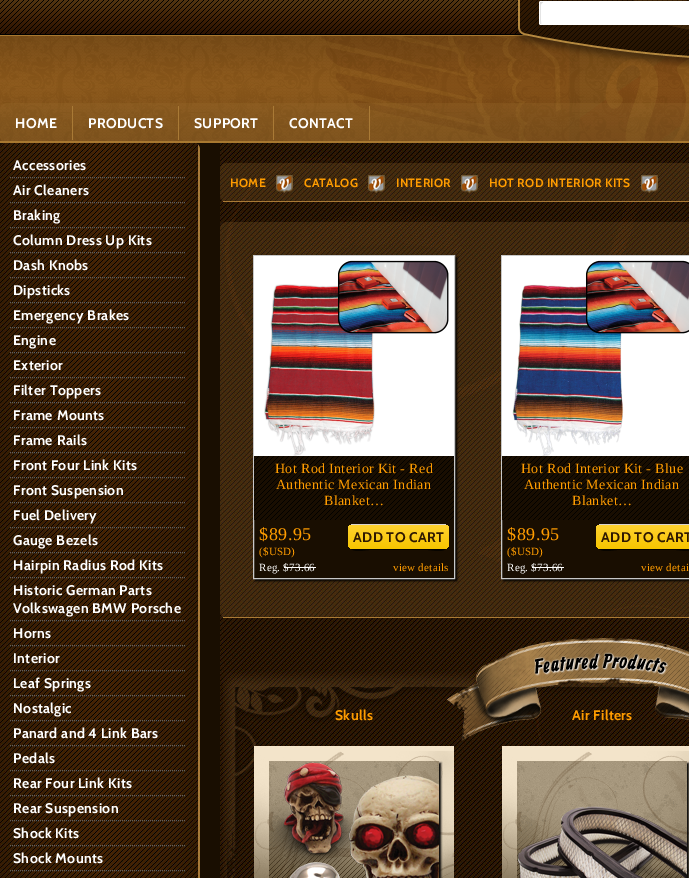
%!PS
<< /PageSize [689 878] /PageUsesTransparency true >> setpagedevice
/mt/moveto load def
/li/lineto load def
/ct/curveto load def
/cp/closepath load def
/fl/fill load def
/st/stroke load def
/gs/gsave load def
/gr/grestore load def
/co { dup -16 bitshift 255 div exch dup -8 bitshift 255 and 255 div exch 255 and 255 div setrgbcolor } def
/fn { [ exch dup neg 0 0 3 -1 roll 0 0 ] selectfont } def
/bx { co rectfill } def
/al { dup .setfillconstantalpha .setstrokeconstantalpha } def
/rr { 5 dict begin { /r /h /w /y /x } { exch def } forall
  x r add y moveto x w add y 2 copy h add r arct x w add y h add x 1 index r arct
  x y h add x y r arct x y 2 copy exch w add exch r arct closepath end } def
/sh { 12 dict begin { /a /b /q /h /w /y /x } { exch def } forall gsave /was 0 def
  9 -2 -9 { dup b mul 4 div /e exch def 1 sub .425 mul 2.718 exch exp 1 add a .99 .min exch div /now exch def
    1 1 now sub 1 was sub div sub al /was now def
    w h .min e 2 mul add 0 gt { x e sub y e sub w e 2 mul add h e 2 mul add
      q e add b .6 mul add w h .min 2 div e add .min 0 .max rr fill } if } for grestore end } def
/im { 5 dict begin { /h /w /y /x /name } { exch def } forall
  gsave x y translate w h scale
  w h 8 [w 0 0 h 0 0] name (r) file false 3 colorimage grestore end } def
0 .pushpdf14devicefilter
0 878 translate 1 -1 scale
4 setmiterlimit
0 0 689 878 16#190E01 bx
(media/1.raw) 0 0 689 143 im
(media/2.raw) 0 36 689 105 im
(media/3.raw) 514 0 175 68 im
(media/4.raw) 539 1 8 24 im
16#FFFFFF co
541 1 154 24 6 rr fl
(media/5.raw) 0 103 689 38 im
72 106 1 34 16#A97A36 bx
178 106 1 34 16#A97A36 bx
273 106 1 34 16#A97A36 bx
369 106 1 34 16#A97A36 bx
(media/6.raw) 0 143 200 735 im
16#5F5F5F co
[1 1] 0 setdash
10 177.5 mt 185 177.5 li st
10 202.5 mt 185 202.5 li st
10 227.5 mt 185 227.5 li st
10 252.5 mt 185 252.5 li st
10 277.5 mt 185 277.5 li st
10 302.5 mt 185 302.5 li st
10 327.5 mt 185 327.5 li st
10 352.5 mt 185 352.5 li st
10 377.5 mt 185 377.5 li st
10 402.5 mt 185 402.5 li st
10 427.5 mt 185 427.5 li st
10 452.5 mt 185 452.5 li st
10 477.5 mt 185 477.5 li st
10 502.5 mt 185 502.5 li st
10 527.5 mt 185 527.5 li st
10 552.5 mt 185 552.5 li st
10 577.5 mt 185 577.5 li st
10 620.5 mt 185 620.5 li st
10 645.5 mt 185 645.5 li st
10 670.5 mt 185 670.5 li st
10 695.5 mt 185 695.5 li st
10 720.5 mt 185 720.5 li st
10 745.5 mt 185 745.5 li st
10 770.5 mt 185 770.5 li st
10 795.5 mt 185 795.5 li st
10 820.5 mt 185 820.5 li st
10 845.5 mt 185 845.5 li st
10 870.5 mt 185 870.5 li st
(media/7.raw) 220 143 469 735 im
(media/8.raw) 220 163 469 38 im
223 201 466 1 16#A97A36 bx
(media/9.raw) 276 175 17 18 im
(media/10.raw) 368 175 17 18 im
(media/11.raw) 461 175 17 18 im
(media/12.raw) 641 175 17 18 im
(media/13.raw) 220 222 469 395 im
223 617 466 1 16#A97A36 bx
16#000000 co
255 257 202 324 0 1 1 sh
254 456 200 122 16#190E01 bx
16#C8C8C8 co
[] 0 setdash
253.5 255.5 201 323 rectstroke
254 256 200 200 16#FFFFFF bx
(media/14.raw) 264 260 185 196 im
(media/15.raw) 254 456 200 64 im
16#000000 co
348 543 mt 348 554 363 550 369 550 ct 428 550 li 434 550 449 554 449 543 ct 449 546 446 549 443 549 ct 354 549 li 351 549 348 546 348 543 ct cp fl
gs
348 524 101 25 6 rr clip newpath
gs 348 525 mt 449 525 li 449 543 li 449 546.5 446.5 549 443 549 ct 354 549 li 350.5 549 348 546.5 348 543 ct cp clip newpath
<< /ShadingType 2 /ColorSpace /DeviceRGB /Coords [348 525 348 549] /Extend [true true] /Function << /FunctionType 2 /Domain [0 1] /C0 [1 .824 .184] /C1 [.969 .773 0] /N 1 >> >> shfill gr
gr
351 524 95 1 16#DAD5CE bx
284 567 32 1 16#FFFFFF bx
16#000000 co
503 257 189 324 0 1 1 sh
502 456 187 122 16#190E01 bx
16#C8C8C8 co
501.5 255.5 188 323 rectstroke
502 256 187 200 16#FFFFFF bx
(media/16.raw) 512 260 177 196 im
(media/17.raw) 502 456 187 64 im
16#000000 co
596 543 mt 596 554 611 550 617 550 ct 676 550 li 682 550 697 554 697 543 ct 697 546 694 549 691 549 ct 602 549 li 599 549 596 546 596 543 ct cp fl
gs
596 524 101 25 6 rr clip newpath
gs 596 525 mt 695 525 li 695 543 li 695 546.5 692.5 549 689 549 ct 602 549 li 598.5 549 596 546.5 596 543 ct cp clip newpath
<< /ShadingType 2 /ColorSpace /DeviceRGB /Coords [596 525 596 549] /Extend [true true] /Function << /FunctionType 2 /Domain [0 1] /C0 [1 .824 .184] /C1 [.969 .773 0] /N 1 >> >> shfill gr
gr
599 524 90 1 16#DAD5CE bx
532 567 32 1 16#FFFFFF bx
(media/18.raw) 223 638 466 240 im
(media/19.raw) 254 746 200 132 im
gs
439 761 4 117 rectclip
16#000000 co
271 763 170 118 0 1 1 sh
gr
(media/20.raw) 269 762 170 116 im
(media/21.raw) 502 746 187 132 im
gs
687 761 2 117 rectclip
16#000000 co
519 763 170 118 0 1 1 sh
gr
(media/22.raw) 517 806 170 72 im
/Cabin-Bold 14 fn
15 128 mt .35 0 (HOME) ashow
88 128 mt .35 0 (PRODUCTS) ashow
194 128 mt .35 0 (SUPPORT) ashow
289 128 mt .35 0 (CONTACT) ashow
13 170 mt .35 0 (Accessories) ashow
13 195 mt .35 0 (Air Cleaners) ashow
13 220 mt .35 0 (Braking) ashow
13 245 mt .35 0 (Column Dress Up Kits) ashow
13 270 mt .35 0 (Dash Knobs) ashow
13 295 mt .35 0 (Dipsticks) ashow
13 320 mt .35 0 (Emergency Brakes) ashow
13 345 mt .35 0 (Engine) ashow
13 370 mt .35 0 (Exterior) ashow
13 395 mt .35 0 (Filter Toppers) ashow
13 420 mt .35 0 (Frame Mounts) ashow
13 445 mt .35 0 (Frame Rails) ashow
13 470 mt .35 0 (Front Four Link Kits) ashow
13 495 mt .35 0 (Front Suspension) ashow
13 520 mt .35 0 (Fuel Delivery) ashow
13 545 mt .35 0 (Gauge Bezels) ashow
13 570 mt .35 0 (Hairpin Radius Rod Kits) ashow
13 595 mt .35 0 (Historic German Parts) ashow
13 613 mt .35 0 (Volkswagen BMW Porsche) ashow
13 638 mt .35 0 (Horns) ashow
13 663 mt .35 0 (Interior) ashow
13 688 mt .35 0 (Leaf Springs) ashow
13 713 mt .35 0 (Nostalgic) ashow
13 738 mt .35 0 (Panard and 4 Link Bars) ashow
13 763 mt .35 0 (Pedals) ashow
13 788 mt .35 0 (Rear Four Link Kits) ashow
13 813 mt .35 0 (Rear Suspension) ashow
13 838 mt .35 0 (Shock Kits) ashow
13 863 mt .35 0 (Shock Mounts) ashow
/Cabin-Bold 12 fn
16#FF9C00 co
230 187 mt .3 0 (HOME) ashow
304 187 mt .3 0 (CATALOG) ashow
396 187 mt .3 0 (INTERIOR) ashow
489 187 mt .3 0 (HOT ROD INTERIOR KITS) ashow
/LiberationSerif-Regular 14 fn
275 473 mt .35 0 (Hot Rod Interior Kit - Red) ashow
276 489 mt .35 0 (Authentic Mexican Indian) ashow
324 505 mt .35 0 (Blanket…) ashow
/LiberationSerif-Regular 18 fn
259 540 mt .5 0 ($89.95) ashow
/LiberationSerif-Regular 11 fn
259 555 mt .25 0 (\($USD\)) ashow
/Cabin-Bold 14 fn
16#2E1801 co
353 542 mt .35 0 (ADD TO CART) ashow
/LiberationSerif-Regular 11 fn
16#FFFFFF co
259 571 mt .25 0 (Reg. $73.66) ashow
16#FF9C00 co
393 571 mt .25 0 (view details) ashow
/LiberationSerif-Regular 14 fn
521 473 mt .35 0 (Hot Rod Interior Kit - Blue) ashow
524 489 mt .35 0 (Authentic Mexican Indian) ashow
572 505 mt .35 0 (Blanket…) ashow
/LiberationSerif-Regular 18 fn
507 540 mt .5 0 ($89.95) ashow
/LiberationSerif-Regular 11 fn
507 555 mt .25 0 (\($USD\)) ashow
/Cabin-Bold 14 fn
16#2E1801 co
601 542 mt .35 0 (ADD TO CART) ashow
/LiberationSerif-Regular 11 fn
16#FFFFFF co
507 571 mt .25 0 (Reg. $73.66) ashow
16#FF9C00 co
641 571 mt .25 0 (view detai) ashow
/Cabin-Bold 14 fn
335 720 mt .35 0 (Skulls) ashow
572 720 mt .35 0 (Air Filters) ashow
.poppdf14devicefilter showpage
